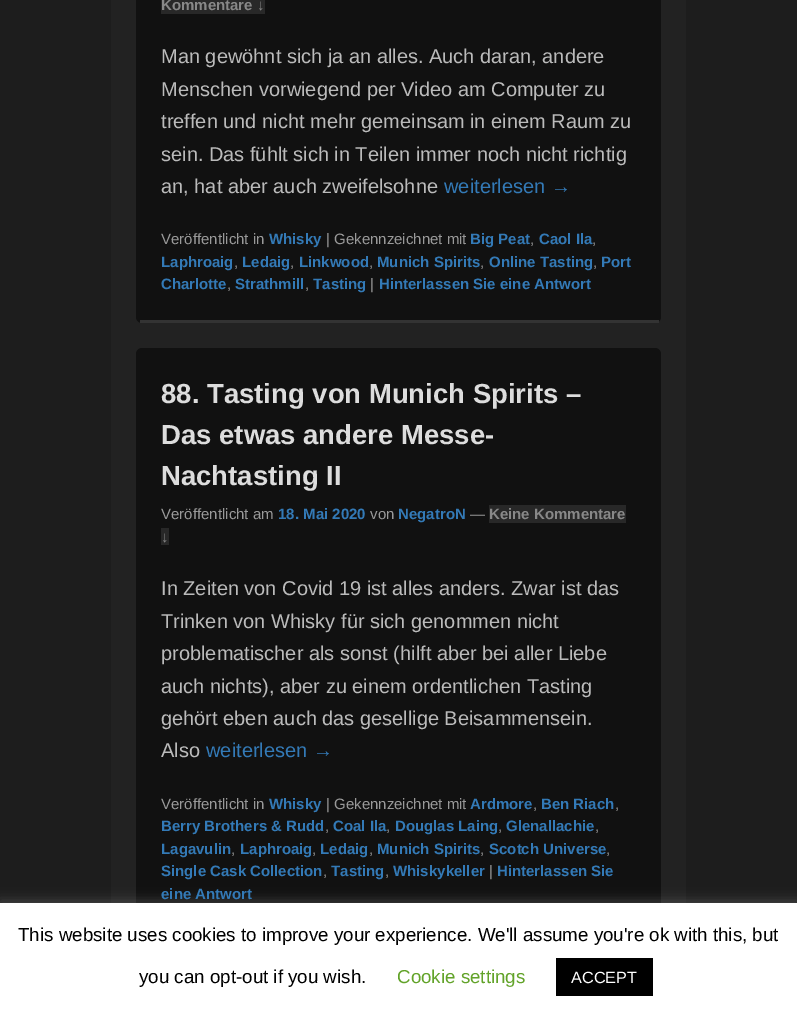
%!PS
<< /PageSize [797 1017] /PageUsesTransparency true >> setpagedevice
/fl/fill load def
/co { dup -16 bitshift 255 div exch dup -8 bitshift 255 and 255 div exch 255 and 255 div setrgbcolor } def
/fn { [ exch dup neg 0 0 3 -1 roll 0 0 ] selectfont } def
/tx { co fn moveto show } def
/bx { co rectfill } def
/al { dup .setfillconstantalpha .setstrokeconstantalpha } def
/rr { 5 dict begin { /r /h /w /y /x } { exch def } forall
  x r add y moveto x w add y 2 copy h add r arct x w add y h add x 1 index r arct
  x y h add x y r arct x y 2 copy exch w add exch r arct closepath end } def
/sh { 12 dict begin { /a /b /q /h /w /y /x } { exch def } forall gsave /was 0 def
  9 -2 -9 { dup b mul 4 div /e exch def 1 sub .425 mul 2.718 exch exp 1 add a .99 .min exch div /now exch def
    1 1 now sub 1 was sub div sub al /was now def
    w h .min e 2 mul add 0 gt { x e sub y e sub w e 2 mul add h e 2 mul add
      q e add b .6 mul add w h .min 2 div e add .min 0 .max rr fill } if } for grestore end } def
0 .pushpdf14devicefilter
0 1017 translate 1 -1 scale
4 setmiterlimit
0 0 797 1017 16#1D1D1D bx
111 0 575 903 16#222222 bx
16#111111 co
136 -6 525 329 6 rr fl
140 320 519 3 16#333333 bx
161 0 104 14 16#282828 bx
16#111111 co
136 348 525 585 6 rr fl
489 505 137 18 16#282828 bx
161 528 8 17 16#282828 bx
16#ACABAB co
0 901 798 115 0 6 .3 sh
0 903 797 114 16#FFFFFF bx
556 958 97 38 16#000000 bx
(Kommentare ↓) 161 10 /LiberationSans-Bold 15 16#888888 tx
(Man gewöhnt sich ja an alles. Auch daran, andere) 161 63 /LiberationSans-Regular 20 16#BBBBBB tx
(Menschen vorwiegend per Video am Computer zu) 161 96 /LiberationSans-Regular 20 16#BBBBBB tx
(treffen und nicht mehr gemeinsam in einem Raum zu) 161 128 /LiberationSans-Regular 20 16#BBBBBB tx
(sein. Das fühlt sich in Teilen immer noch nicht richtig) 161 161 /LiberationSans-Regular 20 16#BBBBBB tx
(an, hat aber auch zweifelsohne) 161 193 /LiberationSans-Regular 20 16#BBBBBB tx
(weiterlesen →) 444 193 /LiberationSans-Regular 20 16#337AB7 tx
(Veröffentlicht in) 161 244 /LiberationSans-Regular 15 16#999999 tx
(Whisky) 269 244 /LiberationSans-Bold 15 16#337AB7 tx
(| Gekennzeichnet mit) 326 244 /LiberationSans-Regular 15 16#999999 tx
(Big Peat) 470 244 /LiberationSans-Bold 15 16#337AB7 tx
(,) 530 244 /LiberationSans-Regular 15 16#999999 tx
(Caol Ila) 539 244 /LiberationSans-Bold 15 16#337AB7 tx
(,) 592 244 /LiberationSans-Regular 15 16#999999 tx
(Laphroaig) 161 267 /LiberationSans-Bold 15 16#337AB7 tx
(,) 234 267 /LiberationSans-Regular 15 16#999999 tx
(Ledaig) 242 267 /LiberationSans-Bold 15 16#337AB7 tx
(,) 290 267 /LiberationSans-Regular 15 16#999999 tx
(Linkwood) 299 267 /LiberationSans-Bold 15 16#337AB7 tx
(,) 369 267 /LiberationSans-Regular 15 16#999999 tx
(Munich Spirits) 377 267 /LiberationSans-Bold 15 16#337AB7 tx
(,) 480 267 /LiberationSans-Regular 15 16#999999 tx
(Online Tasting) 489 267 /LiberationSans-Bold 15 16#337AB7 tx
(,) 593 267 /LiberationSans-Regular 15 16#999999 tx
(Port) 601 267 /LiberationSans-Bold 15 16#337AB7 tx
(Charlotte) 161 289 /LiberationSans-Bold 15 16#337AB7 tx
(,) 227 289 /LiberationSans-Regular 15 16#999999 tx
(Strathmill) 235 289 /LiberationSans-Bold 15 16#337AB7 tx
(,) 305 289 /LiberationSans-Regular 15 16#999999 tx
(Tasting) 313 289 /LiberationSans-Bold 15 16#337AB7 tx
(|) 370 289 /LiberationSans-Regular 15 16#999999 tx
(Hinterlassen Sie eine Antwort) 379 289 /LiberationSans-Bold 15 16#337AB7 tx
(88. Tasting von Munich Spirits –) 161 403 /LiberationSans-Bold 27.5 16#DDDDDD tx
(Das etwas andere Messe-) 161 444 /LiberationSans-Bold 27.5 16#DDDDDD tx
(Nachtasting II) 161 485 /LiberationSans-Bold 27.5 16#DDDDDD tx
(Veröffentlicht am) 161 519 /LiberationSans-Regular 15 16#999999 tx
(18. Mai 2020) 278 519 /LiberationSans-Bold 15 16#337AB7 tx
(von) 370 519 /LiberationSans-Regular 15 16#999999 tx
(NegatroN) 398 519 /LiberationSans-Bold 15 16#337AB7 tx
(—) 470 519 /LiberationSans-Regular 15 16#999999 tx
(Keine Kommentare) 489 519 /LiberationSans-Bold 15 16#888888 tx
(↓) 161 542 /LiberationSans-Bold 15 16#888888 tx
(In Zeiten von Covid 19 ist alles anders. Zwar ist das) 161 595 /LiberationSans-Regular 20 16#BBBBBB tx
(Trinken von Whisky für sich genommen nicht) 161 628 /LiberationSans-Regular 20 16#BBBBBB tx
(problematischer als sonst \(hilft aber bei aller Liebe) 161 660 /LiberationSans-Regular 20 16#BBBBBB tx
(auch nichts\), aber zu einem ordentlichen Tasting) 161 693 /LiberationSans-Regular 20 16#BBBBBB tx
(gehört eben auch das gesellige Beisammensein.) 161 725 /LiberationSans-Regular 20 16#BBBBBB tx
(Also) 161 757 /LiberationSans-Regular 20 16#BBBBBB tx
(weiterlesen →) 206 757 /LiberationSans-Regular 20 16#337AB7 tx
(Veröffentlicht in) 161 809 /LiberationSans-Regular 15 16#999999 tx
(Whisky) 269 809 /LiberationSans-Bold 15 16#337AB7 tx
(| Gekennzeichnet mit) 326 809 /LiberationSans-Regular 15 16#999999 tx
(Ardmore) 470 809 /LiberationSans-Bold 15 16#337AB7 tx
(,) 533 809 /LiberationSans-Regular 15 16#999999 tx
(Ben Riach) 541 809 /LiberationSans-Bold 15 16#337AB7 tx
(,) 615 809 /LiberationSans-Regular 15 16#999999 tx
(Berry Brothers & Rudd) 161 831 /LiberationSans-Bold 15 16#337AB7 tx
(,) 325 831 /LiberationSans-Regular 15 16#999999 tx
(Coal Ila) 333 831 /LiberationSans-Bold 15 16#337AB7 tx
(,) 386 831 /LiberationSans-Regular 15 16#999999 tx
(Douglas Laing) 395 831 /LiberationSans-Bold 15 16#337AB7 tx
(,) 498 831 /LiberationSans-Regular 15 16#999999 tx
(Glenallachie) 506 831 /LiberationSans-Bold 15 16#337AB7 tx
(,) 595 831 /LiberationSans-Regular 15 16#999999 tx
(Lagavulin) 161 854 /LiberationSans-Bold 15 16#337AB7 tx
(,) 231 854 /LiberationSans-Regular 15 16#999999 tx
(Laphroaig) 240 854 /LiberationSans-Bold 15 16#337AB7 tx
(,) 312 854 /LiberationSans-Regular 15 16#999999 tx
(Ledaig) 320 854 /LiberationSans-Bold 15 16#337AB7 tx
(,) 369 854 /LiberationSans-Regular 15 16#999999 tx
(Munich Spirits) 377 854 /LiberationSans-Bold 15 16#337AB7 tx
(,) 480 854 /LiberationSans-Regular 15 16#999999 tx
(Scotch Universe) 489 854 /LiberationSans-Bold 15 16#337AB7 tx
(,) 606 854 /LiberationSans-Regular 15 16#999999 tx
(Single Cask Collection) 161 876 /LiberationSans-Bold 15 16#337AB7 tx
(,) 323 876 /LiberationSans-Regular 15 16#999999 tx
(Tasting) 331 876 /LiberationSans-Bold 15 16#337AB7 tx
(,) 385 876 /LiberationSans-Regular 15 16#999999 tx
(Whiskykeller) 393 876 /LiberationSans-Bold 15 16#337AB7 tx
(|) 489 876 /LiberationSans-Regular 15 16#999999 tx
(Hinterlassen Sie) 497 876 /LiberationSans-Bold 15 16#337AB7 tx
(eine Antwort) 161 899 /LiberationSans-Bold 15 16#337AB7 tx
(This website uses cookies to improve your experience. We'll assume you're ok with this, but) 18 941 /LiberationSans-Regular 18.75 16#000000 tx
(you can opt-out if you wish.) 139 983 /LiberationSans-Regular 18.75 16#000000 tx
(Cookie settings) 397 983 /LiberationSans-Regular 18.75 16#62A329 tx
(ACCEPT) 571 983 /LiberationSans-Regular 16.25 16#FFFFFF tx
.poppdf14devicefilter showpage
